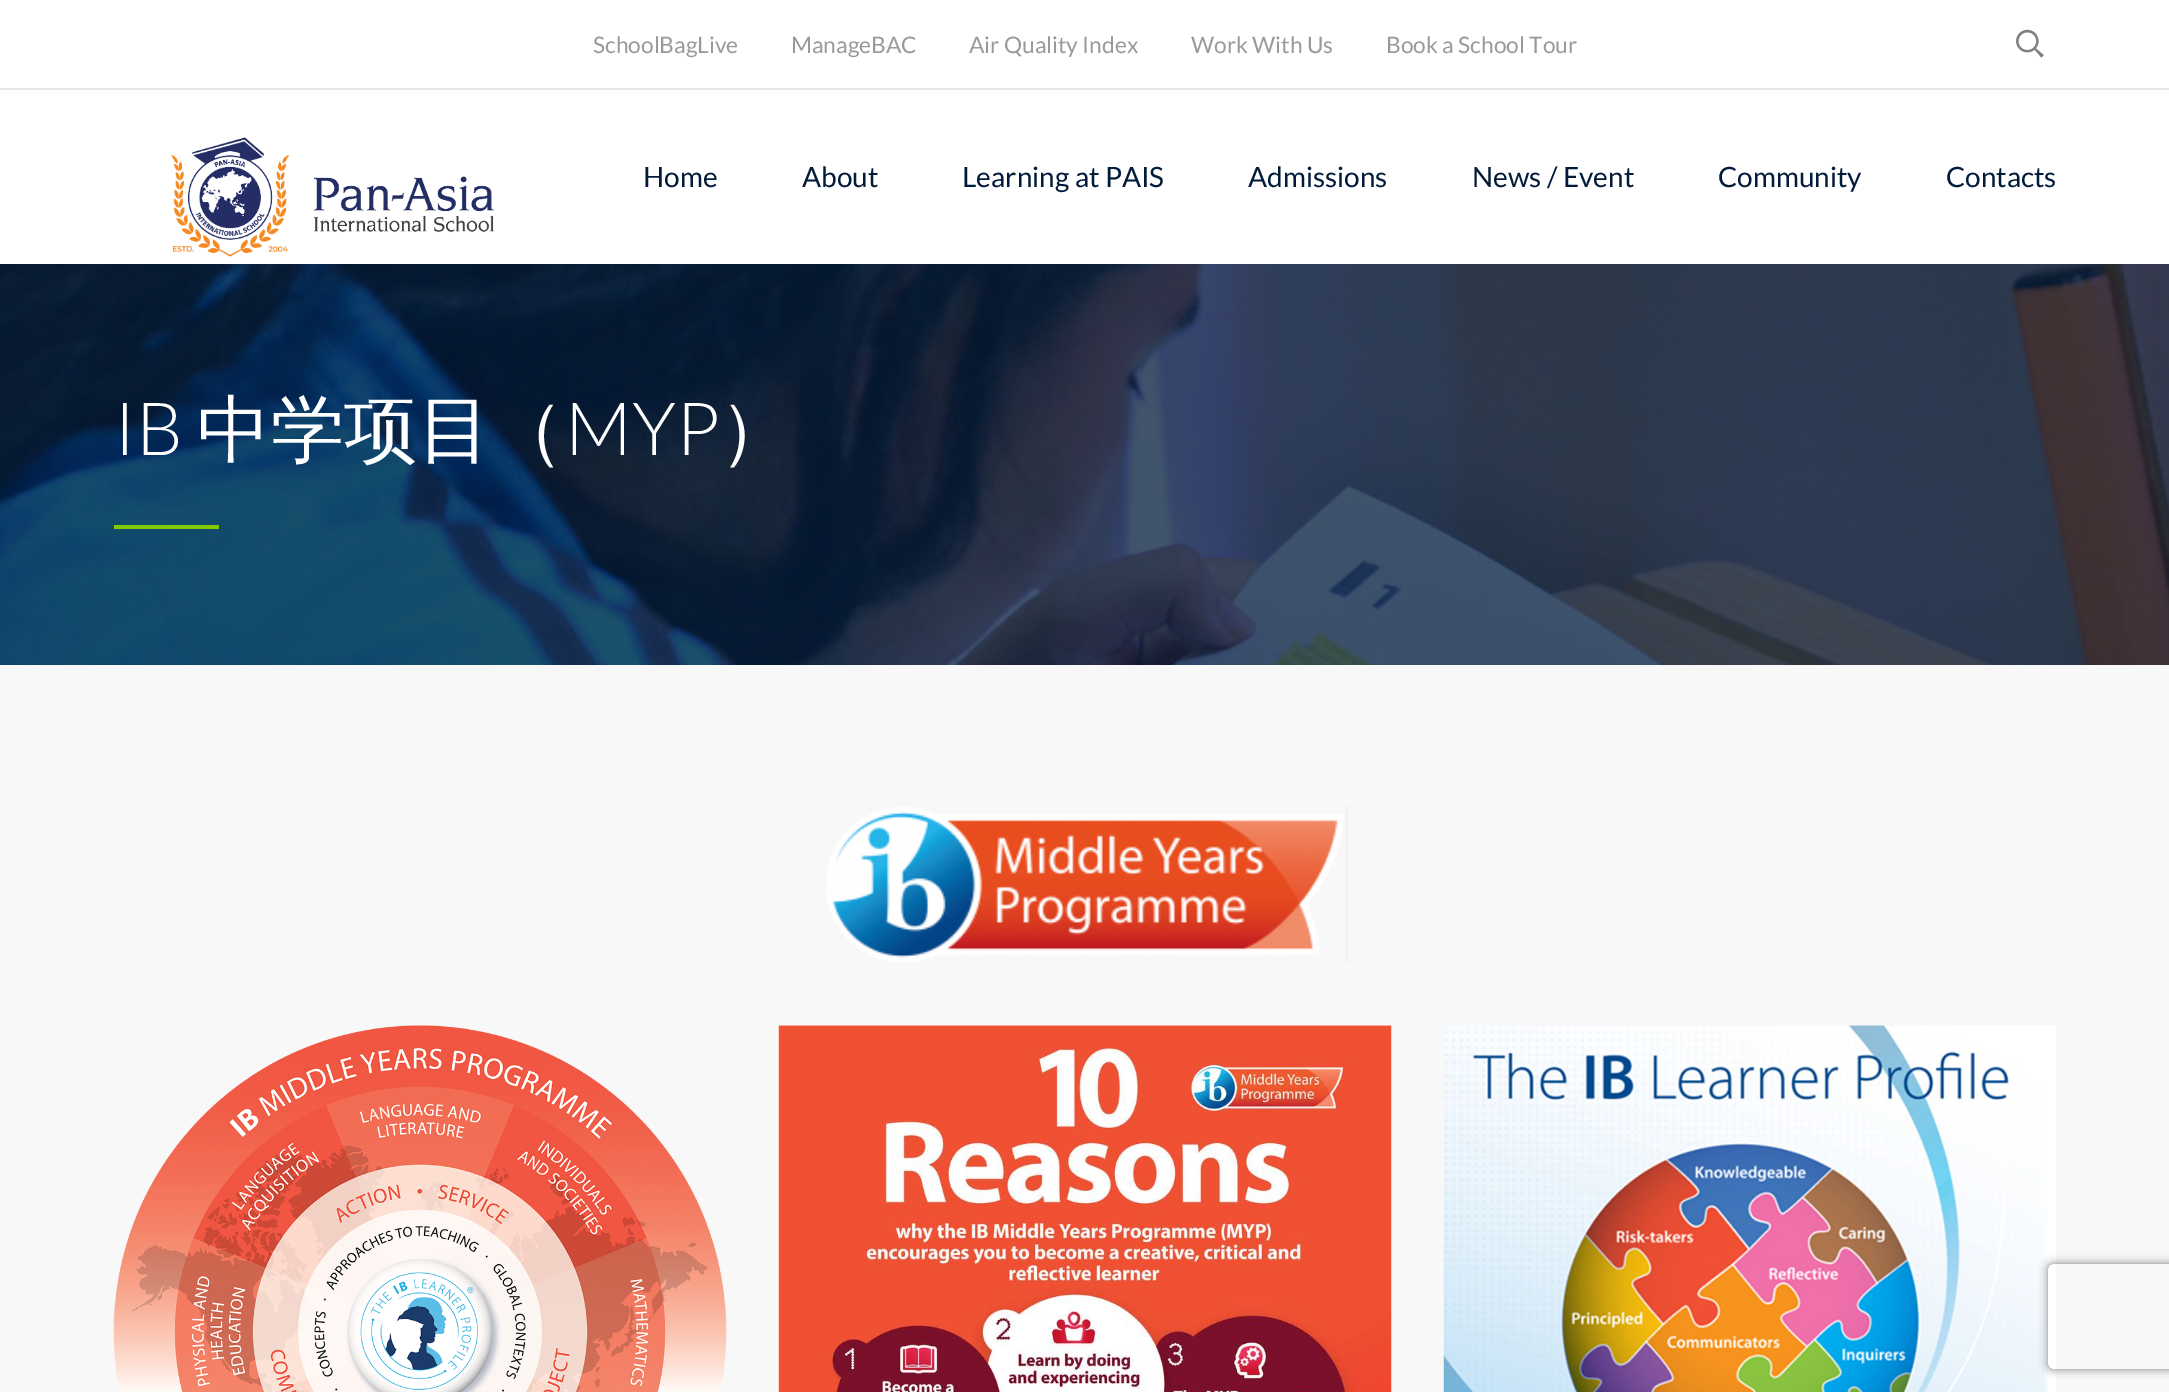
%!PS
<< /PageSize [2169 1392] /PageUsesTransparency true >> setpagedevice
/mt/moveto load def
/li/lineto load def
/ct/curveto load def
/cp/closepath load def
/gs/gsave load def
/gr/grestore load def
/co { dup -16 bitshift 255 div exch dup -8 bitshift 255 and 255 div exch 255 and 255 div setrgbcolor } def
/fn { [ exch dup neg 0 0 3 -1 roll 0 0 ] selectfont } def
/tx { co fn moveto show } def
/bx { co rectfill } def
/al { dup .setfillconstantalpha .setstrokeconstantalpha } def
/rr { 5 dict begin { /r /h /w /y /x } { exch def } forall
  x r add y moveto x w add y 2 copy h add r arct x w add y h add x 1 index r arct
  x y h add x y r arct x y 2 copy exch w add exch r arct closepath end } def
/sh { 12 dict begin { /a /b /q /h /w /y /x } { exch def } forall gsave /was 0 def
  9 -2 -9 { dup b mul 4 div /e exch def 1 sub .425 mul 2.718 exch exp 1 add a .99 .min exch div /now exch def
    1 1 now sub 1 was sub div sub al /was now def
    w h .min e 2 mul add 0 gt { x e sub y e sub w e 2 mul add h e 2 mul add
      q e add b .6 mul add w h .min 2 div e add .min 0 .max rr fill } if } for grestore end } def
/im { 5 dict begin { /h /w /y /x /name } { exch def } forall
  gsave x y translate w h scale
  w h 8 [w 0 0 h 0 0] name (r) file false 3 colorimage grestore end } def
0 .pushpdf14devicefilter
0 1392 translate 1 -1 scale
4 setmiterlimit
0 0 2169 1392 16#F8F8F8 bx
0 0 2169 88 16#FFFFFF bx
0 88 2169 2 16#E6E6E6 bx
(media/1.raw) 2016 29 28 29 im
0 90 2169 174 16#FFFFFF bx
(media/2.raw) 171 137 323 120 im
(media/3.raw) 0 264 2169 401 im
114 525 105 4 16#81CA00 bx
(media/4.raw) 826 805 522 159 im
(media/5.raw) 113 1025 614 367 im
(media/6.raw) 778 1025 614 367 im
(media/7.raw) 1443 1025 613 367 im
gs
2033 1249 mt 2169 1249 li 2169 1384 li 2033 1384 li cp 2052 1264 mt 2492 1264 li 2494 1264 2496 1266 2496 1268 ct 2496 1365 li 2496 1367 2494 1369 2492 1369 ct 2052 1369 li 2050 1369 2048 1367 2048 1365 ct 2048 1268 li 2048 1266 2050 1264 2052 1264 ct cp eoclip newpath
16#808080 co
2048 1264 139 105 4 4.5 1 sh
gr
(SchoolBagLive) 593 53 /Lato-Regular 22.75 16#999999 tx
(ManageBAC) 791 53 /Lato-Regular 22.75 16#999999 tx
(Air Quality Index) 969 53 /Lato-Regular 22.75 16#999999 tx
(Work With Us) 1191 53 /Lato-Regular 22.75 16#999999 tx
(Book a School Tour) 1386 53 /Lato-Regular 22.75 16#999999 tx
(Home) 643 187 /Lato-Regular 28 16#011B3A tx
(About) 802 187 /Lato-Regular 28 16#011B3A tx
(Learning at PAIS) 962 187 /Lato-Regular 28 16#011B3A tx
(Admissions) 1248 187 /Lato-Regular 28 16#011B3A tx
(News / Event) 1472 187 /Lato-Regular 28 16#011B3A tx
(Community) 1718 187 /Lato-Regular 28 16#011B3A tx
(Contacts) 1946 187 /Lato-Regular 28 16#011B3A tx
(IB) 114 455 /Lato-Light 73.5 16#FFFFFF tx
(中学项目（) 197 455 /WenQuanYiZenHei-Medium 73.5 16#FFFFFF tx
(MYP) 565 455 /Lato-Light 73.5 16#FFFFFF tx
(）) 719 455 /WenQuanYiZenHei-Medium 73.5 16#FFFFFF tx
.poppdf14devicefilter showpage
